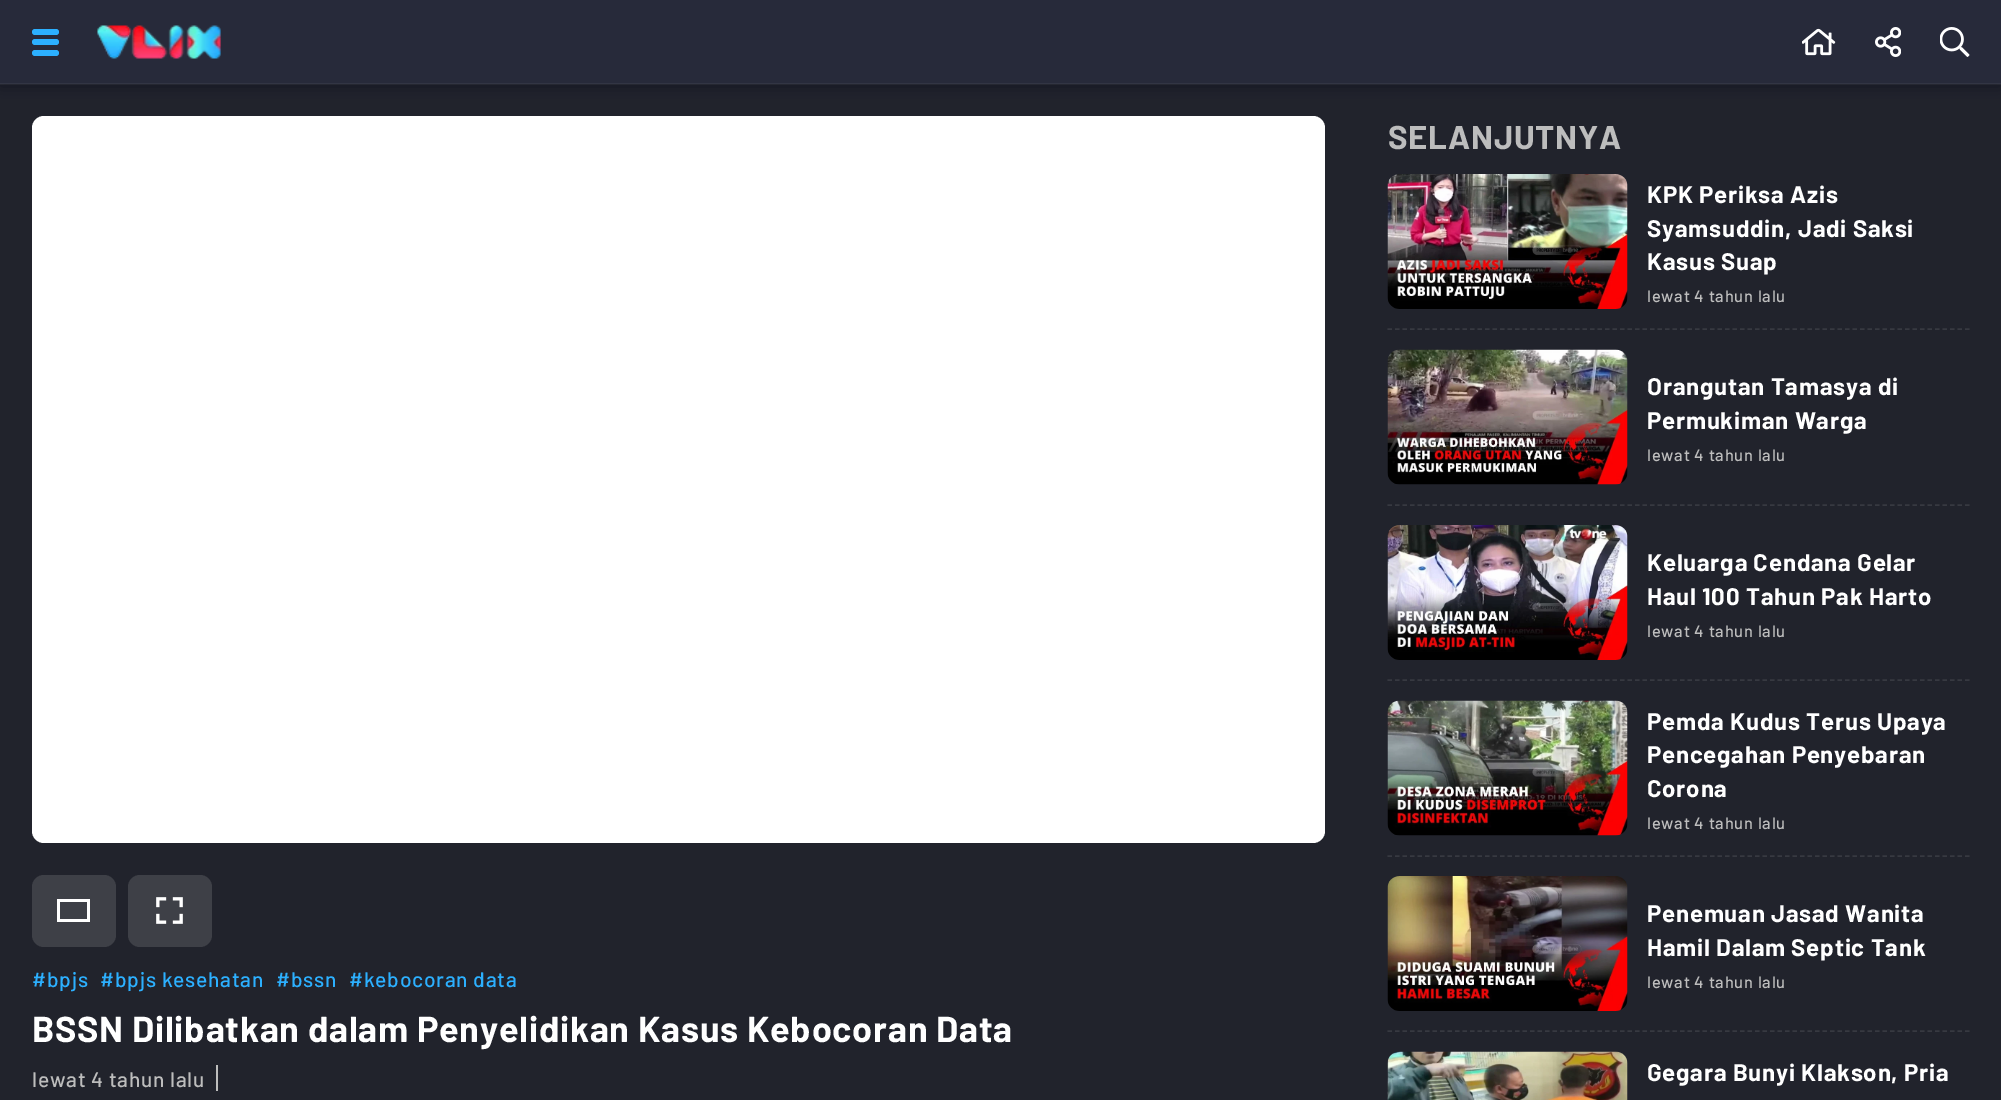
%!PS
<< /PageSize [2001 1100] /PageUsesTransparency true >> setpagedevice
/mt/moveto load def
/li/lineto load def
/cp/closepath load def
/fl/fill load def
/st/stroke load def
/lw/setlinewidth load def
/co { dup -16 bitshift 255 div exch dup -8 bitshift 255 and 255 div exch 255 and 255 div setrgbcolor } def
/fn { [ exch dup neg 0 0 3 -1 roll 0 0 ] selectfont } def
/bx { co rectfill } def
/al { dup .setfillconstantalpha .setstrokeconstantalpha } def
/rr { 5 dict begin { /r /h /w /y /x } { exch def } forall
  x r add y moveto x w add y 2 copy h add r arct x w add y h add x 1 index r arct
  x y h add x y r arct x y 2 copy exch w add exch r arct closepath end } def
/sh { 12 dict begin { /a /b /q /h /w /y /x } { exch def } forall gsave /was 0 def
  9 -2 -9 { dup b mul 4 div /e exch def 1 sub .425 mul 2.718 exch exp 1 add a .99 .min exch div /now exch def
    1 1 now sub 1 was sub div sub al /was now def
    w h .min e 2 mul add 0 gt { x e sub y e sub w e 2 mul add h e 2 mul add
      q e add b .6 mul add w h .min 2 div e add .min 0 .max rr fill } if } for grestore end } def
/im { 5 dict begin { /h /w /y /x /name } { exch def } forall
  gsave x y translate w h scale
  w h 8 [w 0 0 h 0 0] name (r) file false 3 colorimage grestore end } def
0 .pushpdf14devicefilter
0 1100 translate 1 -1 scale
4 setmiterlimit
0 0 2001 1100 16#21232C bx
16#121421 co
0 2 2001 84 0 7.5 .95 sh
0 0 2001 84 16#272A3A bx
0.05 al
0 83 2001 2 16#FFFFFF bx
1 al
16#2CB0FF co
32 29 27 6 3 rr fl
32 39 27 6 3 rr fl
32 50 27 6 3 rr fl
(media/1.raw) 97 25 124 34 im
(media/2.raw) 1802 28 34 28 im
(media/3.raw) 1875 27 26 30 im
(media/4.raw) 1940 27 30 30 im
16#FFFFFF co
32 116 1293 727 12 rr fl
16#373941 co
1.5 lw
[4.5 3] 0 setdash
1387.5 329 mt 1969.5 329 li st
(media/5.raw) 1387 174 241 135 im
1387.5 505 mt 1969.5 505 li st
(media/6.raw) 1387 349 241 136 im
1387.5 680 mt 1969.5 680 li st
(media/7.raw) 1387 525 241 135 im
1387.5 856 mt 1969.5 856 li st
(media/8.raw) 1387 700 241 136 im
1387.5 1031 mt 1969.5 1031 li st
(media/9.raw) 1387 876 241 135 im
(media/10.raw) 1387 1051 241 49 im
16#3E4047 co
32 875 84 72 12 rr fl
16#FFFFFF co
90 899 mt 90 922 li 57 922 li 57 899 li cp 60 902 mt 87 902 li 87 919 li 60 919 li cp eofill
16#3E4047 co
128 875 84 72 12 rr fl
(media/11.raw) 156 897 27 27 im
216 1065 2 26 16#BDBDBD bx
/Barlow-Bold 33 fn
1388 149 mt .75 0 (SELANJUTNYA) ashow
/Barlow-Bold 24 fn
16#FFFFFF co
1647 203 mt .75 0 (KPK Periksa Azis) ashow
1647 237 mt .75 0 (Syamsuddin, Jadi Saksi) ashow
1647 270 mt .75 0 (Kasus Suap) ashow
/Barlow-Medium 16.5 fn
16#BDBDBD co
1647 302 mt .75 0 (lewat 4 tahun lalu) ashow
/Barlow-Bold 24 fn
16#FFFFFF co
1647 395 mt .75 0 (Orangutan Tamasya di) ashow
1647 429 mt .75 0 (Permukiman Warga) ashow
/Barlow-Medium 16.5 fn
16#BDBDBD co
1647 461 mt .75 0 (lewat 4 tahun lalu) ashow
/Barlow-Bold 24 fn
16#FFFFFF co
1647 571 mt .75 0 (Keluarga Cendana Gelar) ashow
1647 605 mt .75 0 (Haul 100 Tahun Pak Harto) ashow
/Barlow-Medium 16.5 fn
16#BDBDBD co
1647 637 mt .75 0 (lewat 4 tahun lalu) ashow
/Barlow-Bold 24 fn
16#FFFFFF co
1647 730 mt .75 0 (Pemda Kudus Terus Upaya) ashow
1647 763 mt .75 0 (Pencegahan Penyebaran) ashow
1647 797 mt .75 0 (Corona) ashow
/Barlow-Medium 16.5 fn
16#BDBDBD co
1647 829 mt .75 0 (lewat 4 tahun lalu) ashow
/Barlow-Bold 24 fn
16#FFFFFF co
1647 922 mt .75 0 (Penemuan Jasad Wanita) ashow
1647 956 mt .75 0 (Hamil Dalam Septic Tank) ashow
/Barlow-Medium 16.5 fn
16#BDBDBD co
1647 988 mt .75 0 (lewat 4 tahun lalu) ashow
/Barlow-Bold 24 fn
16#FFFFFF co
1647 1081 mt .75 0 (Gegara Bunyi Klakson, Pria) ashow
/Barlow-Medium 21 fn
16#2CB0FF co
32 987 mt .75 0 (#bpjs) ashow
100 987 mt .75 0 (#bpjs kesehatan) ashow
276 987 mt .75 0 (#bssn) ashow
349 987 mt .75 0 (#kebocoran data) ashow
/Barlow-Bold 36 fn
16#FFFFFF co
32 1042 mt .75 0 (BSSN Dilibatkan dalam Penyelidikan Kasus Kebocoran Data) ashow
/Barlow-Medium 21 fn
16#BDBDBD co
32 1087 mt .75 0 (lewat 4 tahun lalu) ashow
.poppdf14devicefilter showpage
